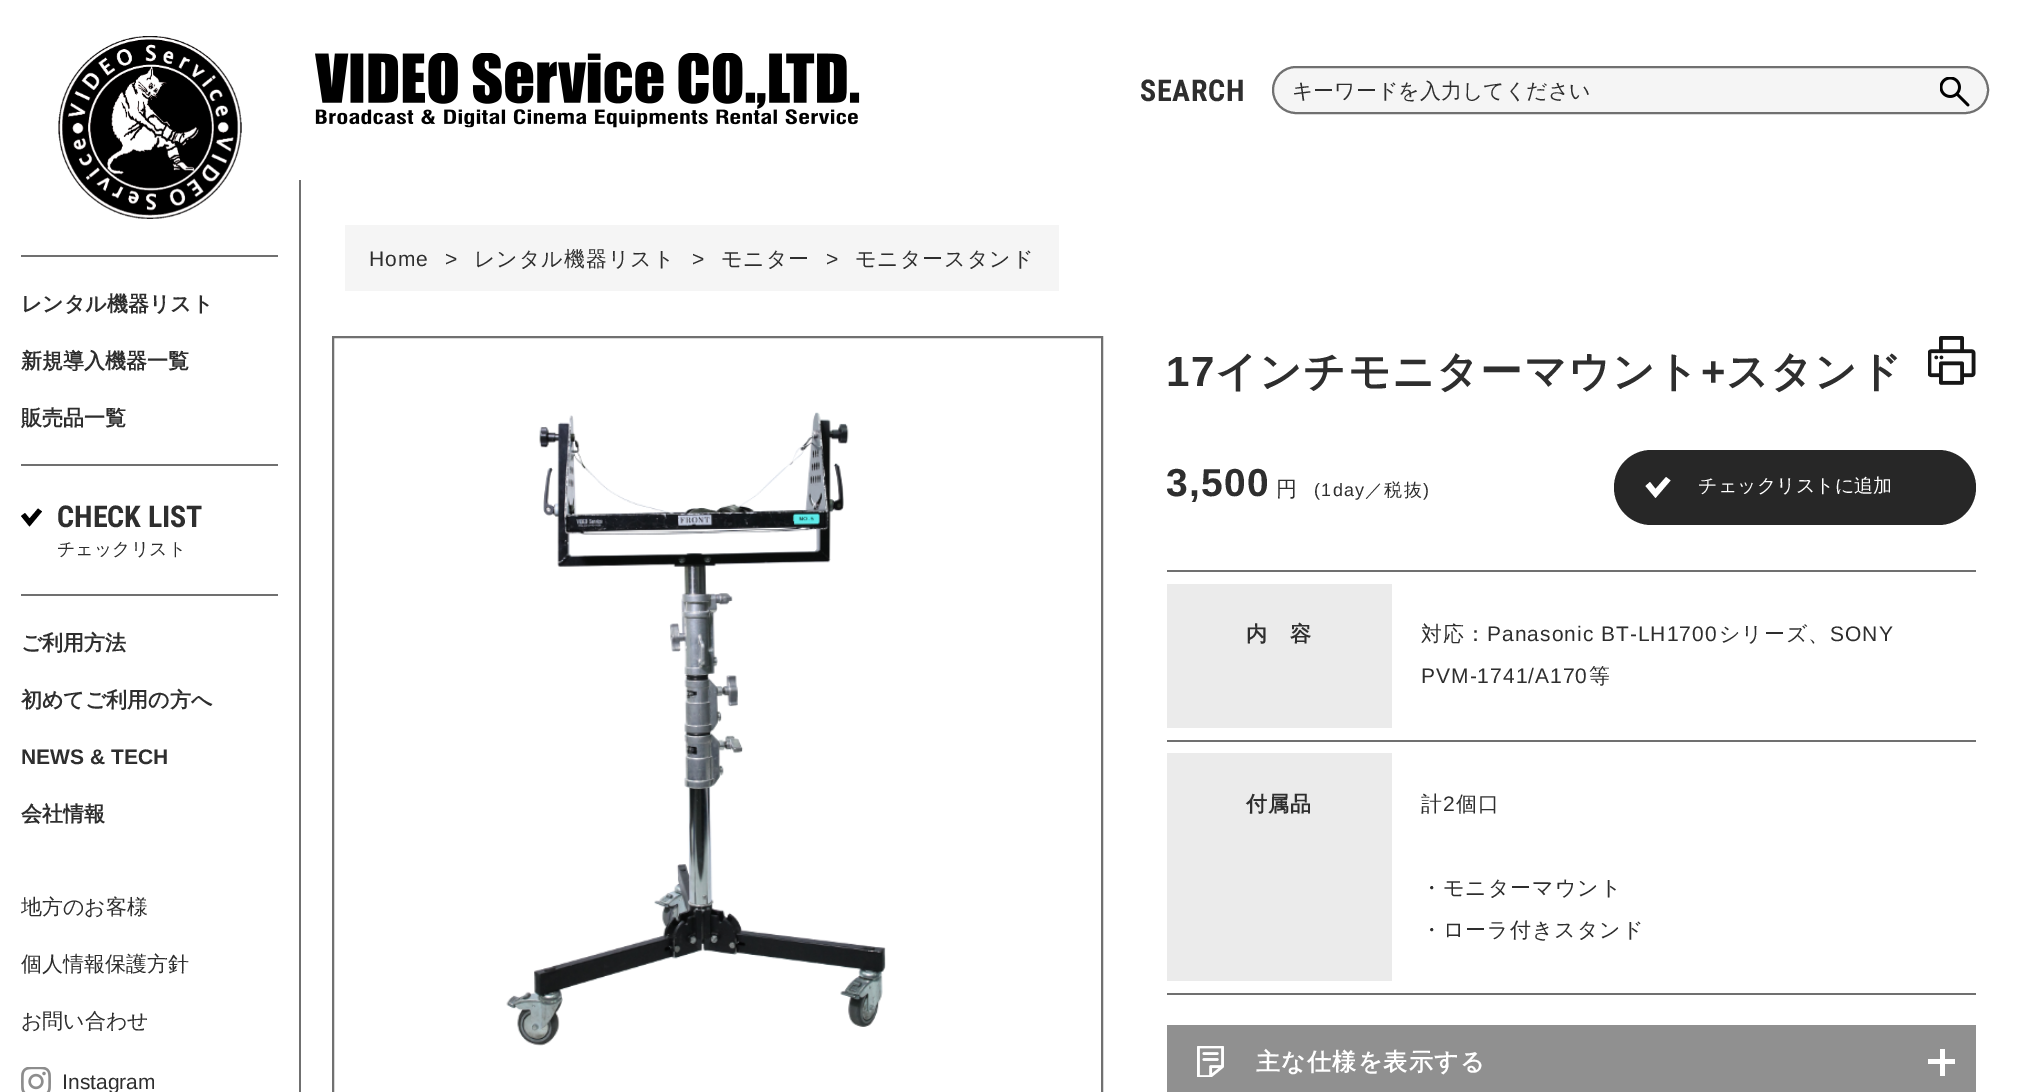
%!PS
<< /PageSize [2038 1092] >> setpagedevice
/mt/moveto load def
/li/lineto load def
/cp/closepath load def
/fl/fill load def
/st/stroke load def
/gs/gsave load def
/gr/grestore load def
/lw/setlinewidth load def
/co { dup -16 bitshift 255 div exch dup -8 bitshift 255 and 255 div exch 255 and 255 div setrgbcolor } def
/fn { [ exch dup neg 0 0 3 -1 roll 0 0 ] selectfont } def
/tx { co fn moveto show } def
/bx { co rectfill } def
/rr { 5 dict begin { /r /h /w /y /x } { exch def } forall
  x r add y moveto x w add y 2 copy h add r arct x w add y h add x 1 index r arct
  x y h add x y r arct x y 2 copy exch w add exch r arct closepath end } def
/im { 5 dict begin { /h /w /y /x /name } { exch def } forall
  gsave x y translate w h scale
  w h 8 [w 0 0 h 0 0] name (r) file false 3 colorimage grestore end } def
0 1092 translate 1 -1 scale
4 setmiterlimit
0 0 2038 1092 16#FFFFFF bx
299 180 2 912 16#707070 bx
(media/1.raw) 58 36 184 183 im
21 255 257 2 16#707070 bx
21 464 257 2 16#707070 bx
21 594 257 2 16#707070 bx
16#000000 co
38 508.5 mt 29.5 518.5 li 25 513 li 21 516 li 29.5 526.5 li 42 511.5 li cp fl
(media/2.raw) 21 1067 30 25 im
(media/3.raw) 315 53 545 75 im
16#F5F5F5 co
1273 67 715 46 23 rr gs fl gr
16#707070 co
2 lw
st
(media/4.raw) 1940 77 30 30 im
345 225 714 66 16#F5F5F5 bx
16#707070 co
333 337 769 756 rectstroke
(media/5.raw) 506 412 380 634 im
(media/6.raw) 1928 336 48 49 im
16#272727 co
1614 450 362 75 37.5 rr fl
16#FFFFFF co
1666 477 mt 1655.5 489 li 1650 482 li 1645.5 486 li 1655.5 498 li 1670.5 480.5 li cp fl
1167 993 809 2 16#707070 bx
1167 570 809 2 16#707070 bx
1167 584 225 144 16#EBEBEB bx
1167 740 809 2 16#707070 bx
1167 753 225 228 16#EBEBEB bx
1167 1025 809 67 16#909090 bx
(media/7.raw) 1197 1046 27 31 im
1940 1049 5 27 16#FFFFFF bx
1928 1059 27 5 16#FFFFFF bx
(レンタル機器リスト) 21 311 /WenQuanYiZenHei-Bold 21 16#2E2E2E tx
(新規導入機器一覧) 21 368 /WenQuanYiZenHei-Bold 21 16#2E2E2E tx
(販売品一覧) 21 425 /WenQuanYiZenHei-Bold 21 16#2E2E2E tx
(CHECK LIST) 57 527 /RobotoCondensed-Bold 30 16#2E2E2E tx
(チェックリスト) 57 555 /WenQuanYiZenHei-Medium 18 16#2E2E2E tx
(ご利用方法) 21 650 /WenQuanYiZenHei-Bold 21 16#2E2E2E tx
(初めてご利用の方へ) 21 707 /WenQuanYiZenHei-Bold 21 16#2E2E2E tx
(NEWS & TECH) 21 764 /LiberationSans-Bold 21 16#2E2E2E tx
(会社情報) 21 821 /WenQuanYiZenHei-Bold 21 16#2E2E2E tx
(地方のお客様) 21 914 /WenQuanYiZenHei-Medium 21 16#2E2E2E tx
(個人情報保護方針) 21 971 /WenQuanYiZenHei-Medium 21 16#2E2E2E tx
(お問い合わせ) 21 1028 /WenQuanYiZenHei-Medium 21 16#2E2E2E tx
(Instagram) 62 1089 /LiberationSans-Regular 21 16#2E2E2E tx
/RobotoCondensed-Bold 30 fn
1140 101 mt .75 0 (SEARCH) ashow
(キーワードを入力してください) 1292 98 /WenQuanYiZenHei-Medium 21 16#2E2E2E tx
/LiberationSans-Regular 21 fn
369 266 mt 1 0 (Home) ashow
445 266 mt 1 0 (>) ashow
/WenQuanYiZenHei-Medium 21 fn
474 266 mt 1 0 (レンタル機器リスト) ashow
/LiberationSans-Regular 21 fn
692 266 mt 1 0 (>) ashow
/WenQuanYiZenHei-Medium 21 fn
721 266 mt 1 0 (モニター) ashow
/LiberationSans-Regular 21 fn
826 266 mt 1 0 (>) ashow
/WenQuanYiZenHei-Medium 21 fn
855 266 mt 1 0 (モニタースタンド) ashow
/LiberationSans-Bold 42 fn
1166 386 mt 1.25 0 (17) ashow
/WenQuanYiZenHei-Bold 42 fn
1215 386 mt 1.25 0 (インチモニターマウント) ashow
/LiberationSans-Bold 42 fn
1701 386 mt 1.25 0 (+) ashow
/WenQuanYiZenHei-Bold 42 fn
1726 386 mt 1.25 0 (スタンド) ashow
/LiberationSans-Bold 39 fn
1166 496 mt 1.25 0 (3,500) ashow
/WenQuanYiZenHei-Medium 21 fn
1276 496 mt 1.25 0 (円) ashow
/LiberationSans-Regular 18 fn
1314 496 mt 1.25 0 (\(1day) ashow
/WenQuanYiZenHei-Medium 18 fn
1365 496 mt 1.25 0 (／税抜) ashow
/LiberationSans-Regular 18 fn
1423 496 mt 1.25 0 (\)) ashow
(チェックリストに追加) 1698 492 /WenQuanYiZenHei-Medium 19.1 16#FFFFFF tx
/WenQuanYiZenHei-Bold 21 fn
16#2E2E2E co
1246 641 mt 1 0 (内　容) ashow
/WenQuanYiZenHei-Medium 21 fn
1421 641 mt 1 0 (対応：) ashow
/LiberationSans-Regular 21 fn
1487 641 mt 1 0 (Panasonic BT-LH1700) ashow
/WenQuanYiZenHei-Medium 21 fn
1719 641 mt 1 0 (シリーズ、) ashow
/LiberationSans-Regular 21 fn
1830 641 mt 1 0 (SONY) ashow
1421 683 mt 1 0 (PVM-1741/A170) ashow
/WenQuanYiZenHei-Medium 21 fn
1589 683 mt 1 0 (等) ashow
/WenQuanYiZenHei-Bold 21 fn
1246 811 mt 1 0 (付属品) ashow
/WenQuanYiZenHei-Medium 21 fn
1421 811 mt 1 0 (計) ashow
/LiberationSans-Regular 21 fn
1443 811 mt 1 0 (2) ashow
/WenQuanYiZenHei-Medium 21 fn
1456 811 mt 1 0 (個口) ashow
1421 895 mt 1 0 (・モニターマウント) ashow
1421 937 mt 1 0 (・ローラ付きスタンド) ashow
/WenQuanYiZenHei-Bold 24 fn
16#FFFFFF co
1256 1070 mt 1.25 0 (主な仕様を表示する) ashow
showpage
